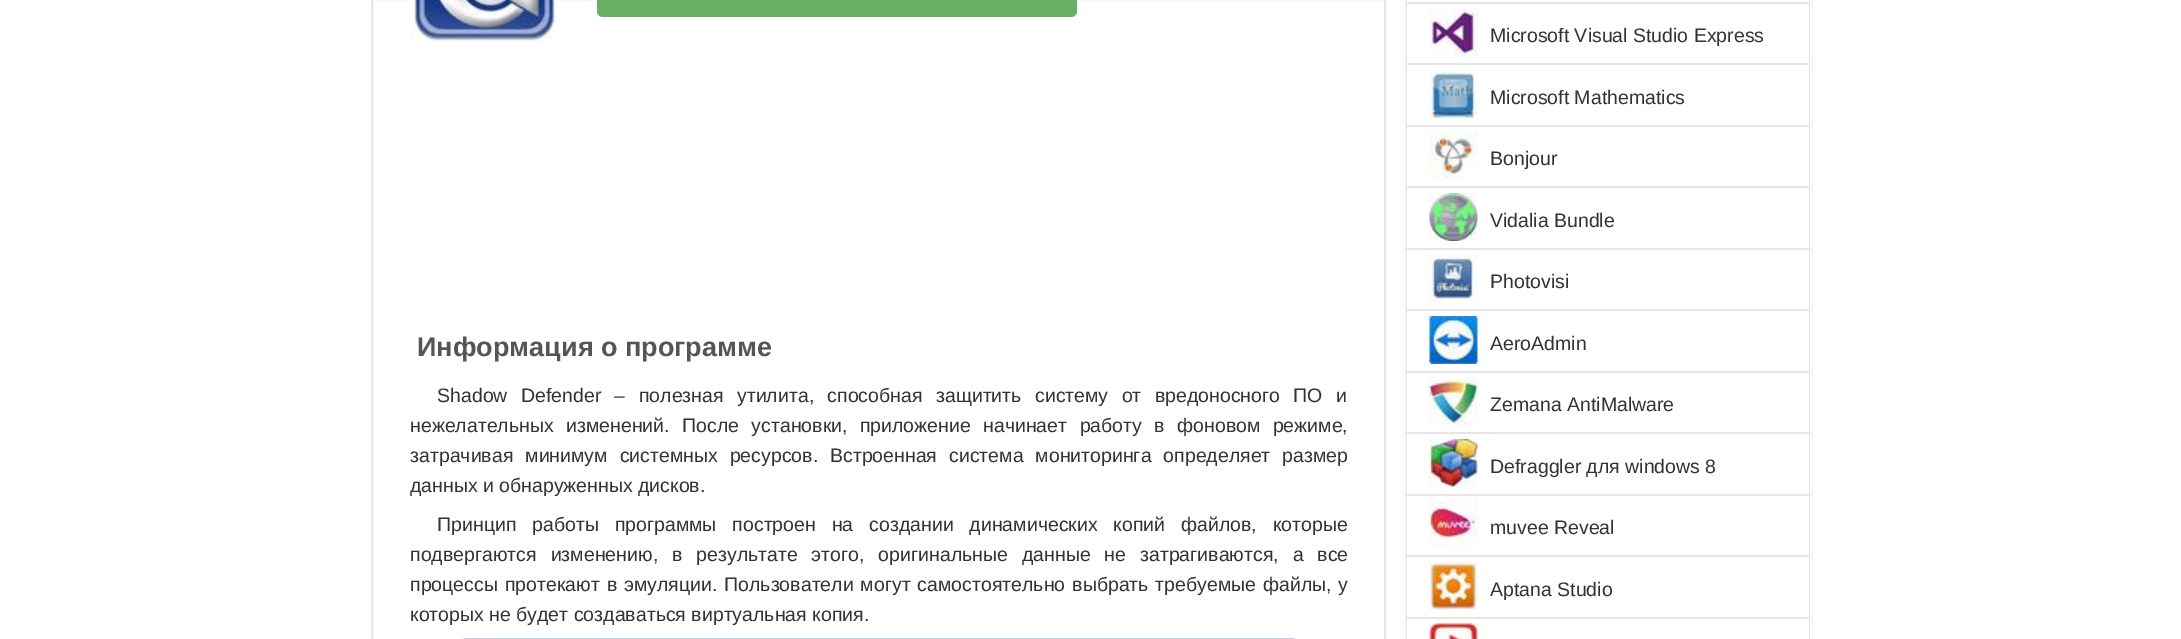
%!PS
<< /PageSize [2181 639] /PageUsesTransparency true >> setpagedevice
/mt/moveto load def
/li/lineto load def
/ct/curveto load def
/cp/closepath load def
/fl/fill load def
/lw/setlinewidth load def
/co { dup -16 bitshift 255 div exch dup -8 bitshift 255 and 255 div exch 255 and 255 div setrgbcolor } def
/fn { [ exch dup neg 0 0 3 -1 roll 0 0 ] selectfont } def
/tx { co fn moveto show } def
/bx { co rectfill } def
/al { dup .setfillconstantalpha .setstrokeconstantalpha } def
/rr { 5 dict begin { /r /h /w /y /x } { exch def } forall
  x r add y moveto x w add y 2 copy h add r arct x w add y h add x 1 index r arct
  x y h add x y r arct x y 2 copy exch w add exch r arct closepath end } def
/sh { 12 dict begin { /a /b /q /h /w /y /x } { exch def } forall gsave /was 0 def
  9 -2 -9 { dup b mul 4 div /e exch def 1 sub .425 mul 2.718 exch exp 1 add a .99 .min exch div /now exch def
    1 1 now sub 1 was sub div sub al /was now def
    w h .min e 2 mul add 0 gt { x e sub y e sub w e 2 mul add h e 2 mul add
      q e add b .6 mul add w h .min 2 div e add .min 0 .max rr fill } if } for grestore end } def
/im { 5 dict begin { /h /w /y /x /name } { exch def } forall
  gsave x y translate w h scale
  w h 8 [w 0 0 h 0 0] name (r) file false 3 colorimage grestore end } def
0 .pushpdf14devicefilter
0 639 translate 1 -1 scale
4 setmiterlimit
0 0 2181 639 16#FFFFFF bx
16#E5E5E5 co
2 lw
372 -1 1013 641 rectstroke
(media/1.raw) 409 0 147 43 im
16#68AE65 co
597 -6 480 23 6 rr fl
(media/2.raw) 463 638 832 1 im
16#E9E9E9 co
1406 -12 405 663 6 2 1 sh
1407 0 404 639 16#FFFFFF bx
16#E5E5E5 co
1412 -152 mt 1804 -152 li 1808 -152 1810 -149 1810 -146 ct 1810 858 li 1810 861 1808 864 1804 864 ct 1412 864 li 1408 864 1406 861 1406 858 ct 1406 -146 li 1406 -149 1408 -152 1412 -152 ct cp 1412 -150 mt 1804 -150 li 1807 -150 1809 -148 1809 -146 ct 1809 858 li 1809 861 1807 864 1804 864 ct 1412 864 li 1409 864 1407 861 1407 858 ct 1407 -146 li 1407 -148 1409 -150 1412 -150 ct cp eofill
1407 2 402 2 16#E5E5E5 bx
1407 63 402 2 16#E5E5E5 bx
(media/3.raw) 1429 8 49 49 im
1407 125 402 2 16#E5E5E5 bx
(media/4.raw) 1429 70 49 48 im
1407 186 402 2 16#E5E5E5 bx
(media/5.raw) 1429 131 49 49 im
1407 248 402 2 16#E5E5E5 bx
(media/6.raw) 1429 193 49 48 im
1407 309 402 2 16#E5E5E5 bx
(media/7.raw) 1429 254 49 49 im
1407 371 402 2 16#E5E5E5 bx
(media/8.raw) 1429 316 49 48 im
1407 432 402 2 16#E5E5E5 bx
(media/9.raw) 1429 377 49 49 im
1407 494 402 2 16#E5E5E5 bx
(media/10.raw) 1429 439 49 48 im
1407 555 402 2 16#E5E5E5 bx
(media/11.raw) 1429 500 49 49 im
1407 617 402 2 16#E5E5E5 bx
(media/12.raw) 1429 562 49 48 im
(media/13.raw) 1429 623 49 16 im
(Информация о программе) 417 356 /LiberationSans-Bold 27 16#555555 tx
/LiberationSans-Regular 19.5 fn
16#333333 co
437 402 mt 8 0 32 (Shadow Defender – полезная утилита, способная защитить систему от вредоносного ПО и) widthshow
410 432 mt 7 0 32 (нежелательных изменений. После установки, приложение начинает работу в фоновом режиме,) widthshow
410 462 mt 6.5 0 32 (затрачивая минимум системных ресурсов. Встроенная система мониторинга определяет размер) widthshow
(данных и обнаруженных дисков.) 410 492 /LiberationSans-Regular 19.5 16#333333 tx
437 531 mt 10.5 0 32 (Принцип работы программы построен на создании динамических копий файлов, которые) widthshow
410 561 mt 8.5 0 32 (подвергаются изменению, в результате этого, оригинальные данные не затрагиваются, а все) widthshow
410 591 mt 1.5 0 32 (процессы протекают в эмуляции. Пользователи могут самостоятельно выбрать требуемые файлы, у) widthshow
(которых не будет создаваться виртуальная копия.) 410 621 /LiberationSans-Regular 19.5 16#333333 tx
(Microsoft Visual Studio Express) 1490 42 /LiberationSans-Regular 19.5 16#333333 tx
(Microsoft Mathematics) 1490 104 /LiberationSans-Regular 19.5 16#333333 tx
(Bonjour) 1490 165 /LiberationSans-Regular 19.5 16#333333 tx
(Vidalia Bundle) 1490 227 /LiberationSans-Regular 19.5 16#333333 tx
(Photovisi) 1490 288 /LiberationSans-Regular 19.5 16#333333 tx
(AeroAdmin) 1490 350 /LiberationSans-Regular 19.5 16#333333 tx
(Zemana AntiMalware) 1490 411 /LiberationSans-Regular 19.5 16#333333 tx
(Defraggler для windows 8) 1490 473 /LiberationSans-Regular 19.5 16#333333 tx
(muvee Reveal) 1490 534 /LiberationSans-Regular 19.5 16#333333 tx
(Aptana Studio) 1490 596 /LiberationSans-Regular 19.5 16#333333 tx
.poppdf14devicefilter showpage
